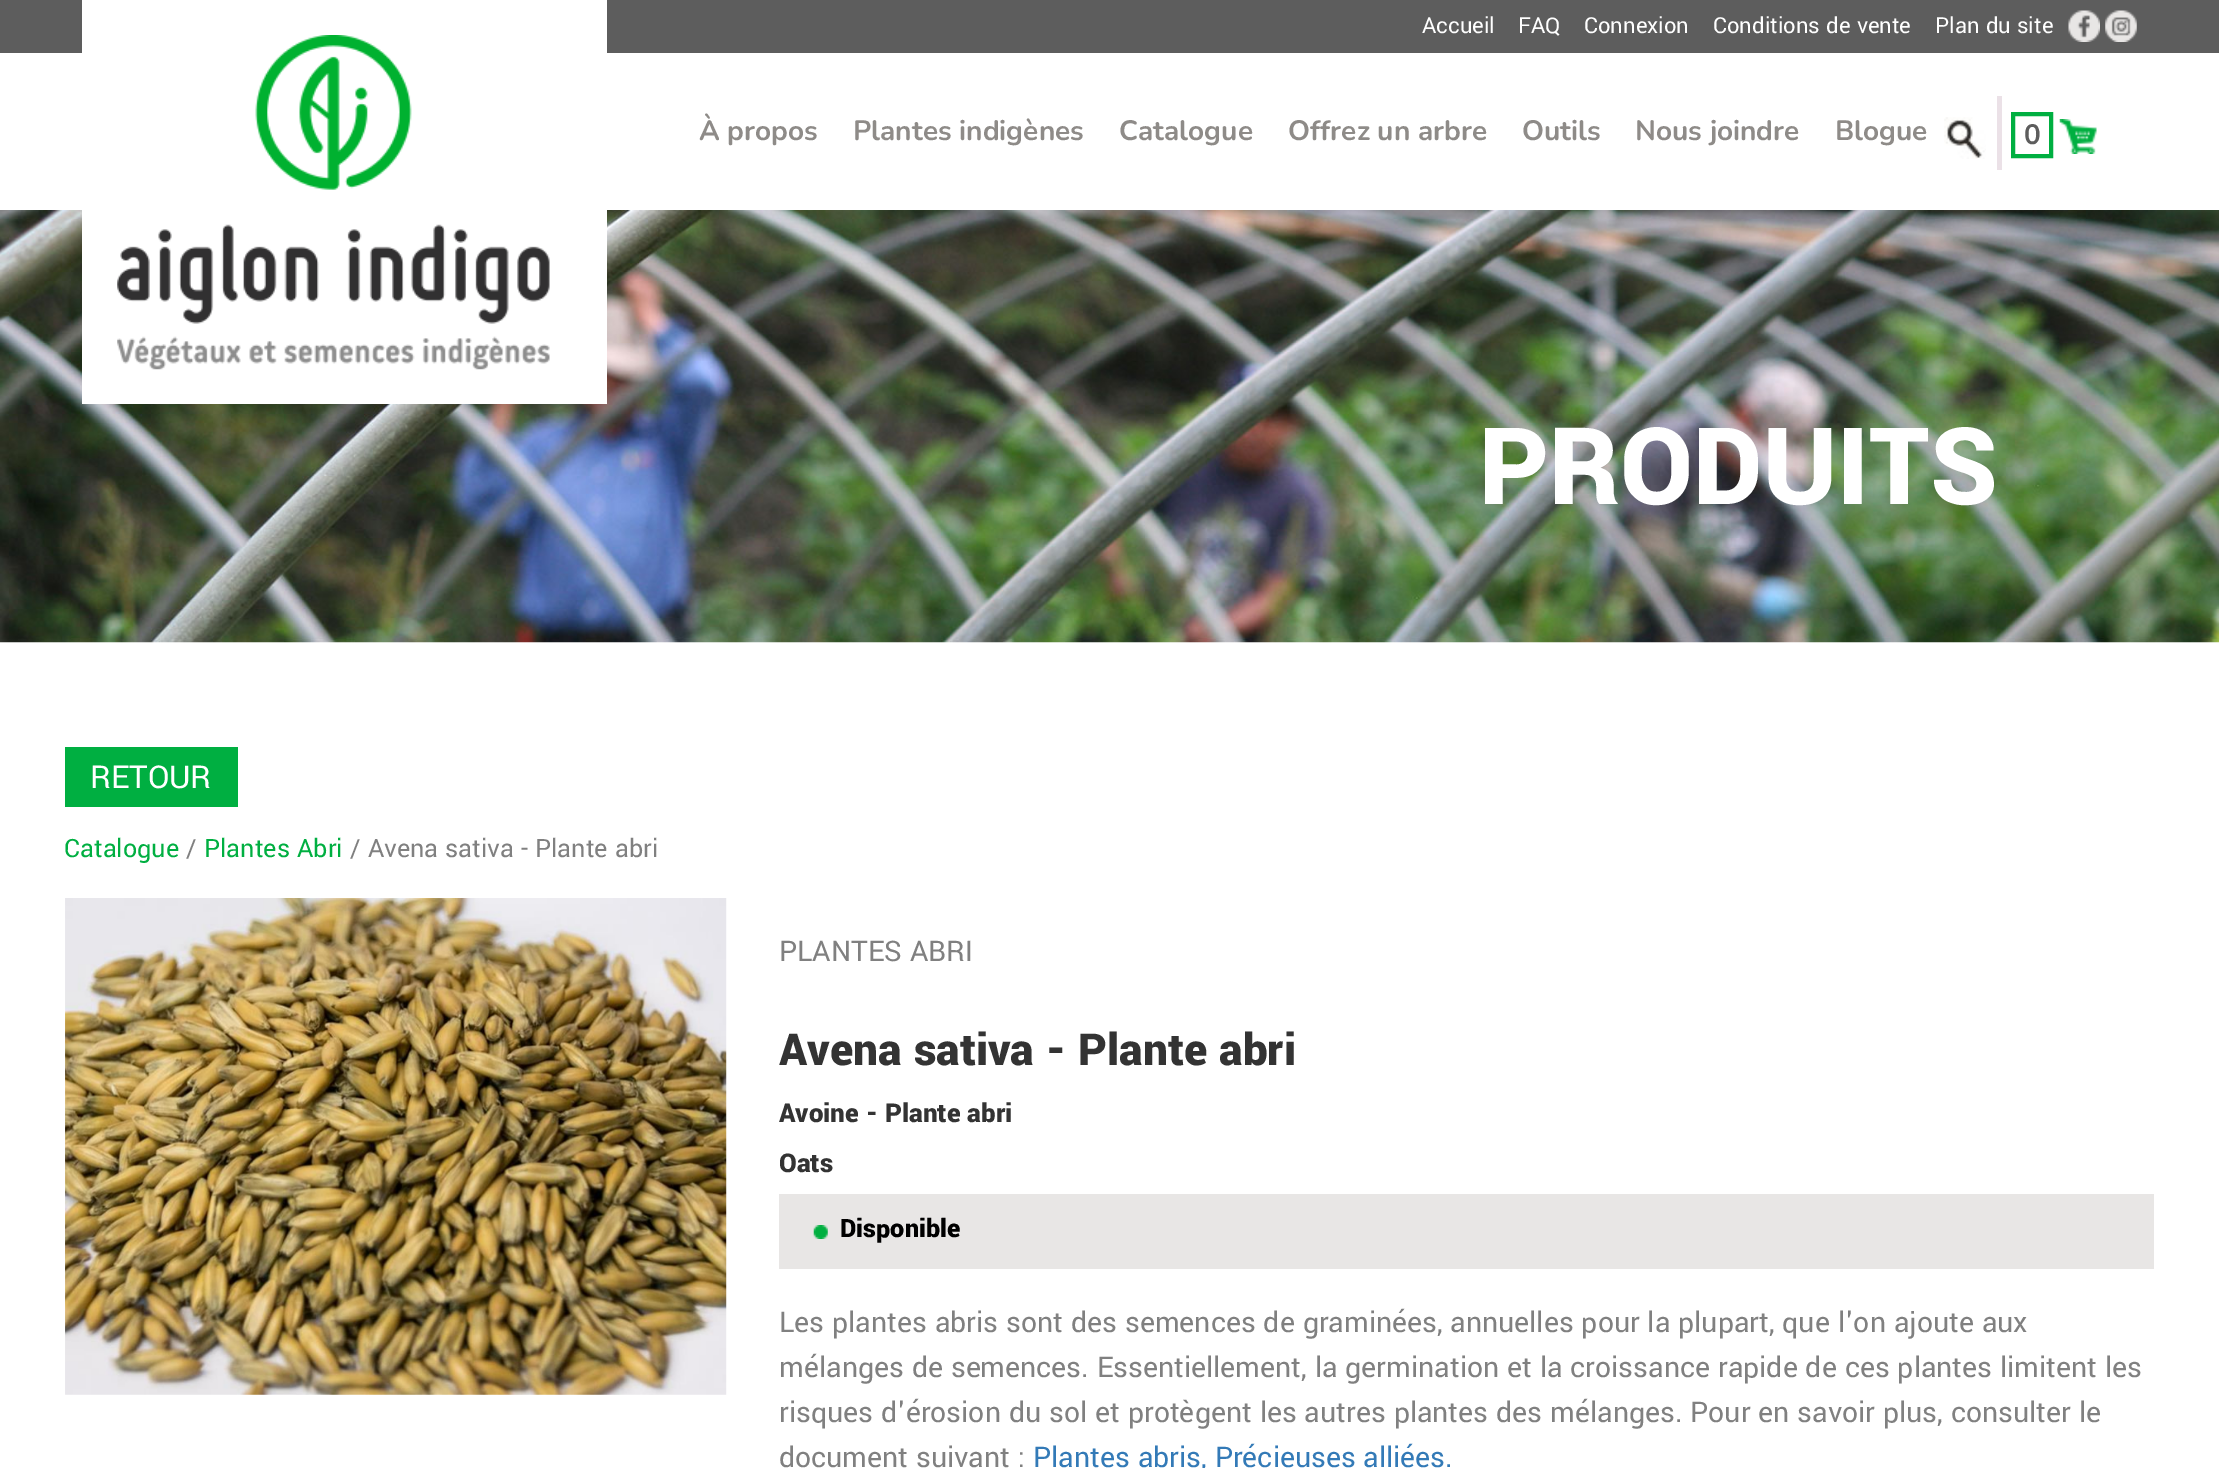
%!PS
<< /PageSize [2219 1468] >> setpagedevice
/lw/setlinewidth load def
/co { dup -16 bitshift 255 div exch dup -8 bitshift 255 and 255 div exch 255 and 255 div setrgbcolor } def
/fn { [ exch dup neg 0 0 3 -1 roll 0 0 ] selectfont } def
/tx { co fn moveto show } def
/bx { co rectfill } def
/im { 5 dict begin { /h /w /y /x /name } { exch def } forall
  gsave x y translate w h scale
  w h 8 [w 0 0 h 0 0] name (r) file false 3 colorimage grestore end } def
0 1468 translate 1 -1 scale
4 setmiterlimit
0 0 2219 1468 16#FFFFFF bx
0 0 2219 53 16#5D5D5D bx
(media/1.raw) 2068 10 32 32 im
(media/2.raw) 2105 10 32 32 im
(media/6.raw) 0 210 2219 433 im
82 0 525 404 16#FFFFFF bx
(media/3.raw) 117 35 433 335 im
(media/4.raw) 1944 117 42 42 im
1997 96 5 74 16#EBE1E7 bx
16#00AF41 co
4 lw
2013 114 38 42 rectstroke
(media/5.raw) 2059 119 38 35 im
65 747 173 60 16#00AF41 bx
(media/7.raw) 65 898 662 497 im
779 1194 1375 75 16#E8E6E5 bx
(media/8.raw) 813 1225 15 14 im
(Accueil) 1422 33 /Yantramanav-Regular 24.5 16#FFFFFF tx
(FAQ) 1518 33 /Yantramanav-Regular 24.5 16#FFFFFF tx
(Connexion) 1584 33 /Yantramanav-Regular 24.5 16#FFFFFF tx
(Conditions de vente) 1713 33 /Yantramanav-Regular 24.5 16#FFFFFF tx
(Plan du site) 1935 33 /Yantramanav-Regular 24.5 16#FFFFFF tx
(À propos) 699 140 /Nunito-Bold 28 16#8E8B88 tx
(Plantes indigènes) 853 140 /Nunito-Bold 28 16#8E8B88 tx
(Catalogue) 1119 140 /Nunito-Bold 28 16#8E8B88 tx
(Offrez un arbre) 1288 140 /Nunito-Bold 28 16#8E8B88 tx
(Outils) 1522 140 /Nunito-Bold 28 16#8E8B88 tx
(Nous joindre) 1635 140 /Nunito-Bold 28 16#8E8B88 tx
(Blogue) 1835 140 /Nunito-Bold 28 16#8E8B88 tx
(0) 2024 144 /Nunito-Bold 28 16#5D5D5D tx
(PRODUITS) 1479 504 /Yantramanav-Black 119 16#FFFFFF tx
(RETOUR) 90 788 /Yantramanav-Regular 35 16#FFFFFF tx
(Catalogue) 64 857 /Yantramanav-Regular 28 16#00AF41 tx
(/) 186 857 /Yantramanav-Regular 28 16#808080 tx
(Plantes Abri) 204 857 /Yantramanav-Regular 28 16#00AF41 tx
(/ Avena sativa - Plante abri) 350 857 /Yantramanav-Regular 28 16#808080 tx
(PLANTES ABRI) 779 961 /Yantramanav-Regular 31.5 16#808080 tx
(Avena sativa - Plante abri) 779 1065 /Yantramanav-Black 49 16#333333 tx
(Avoine - Plante abri) 779 1122 /Yantramanav-Black 28.75 16#333333 tx
(Oats) 779 1172 /Yantramanav-Black 28.75 16#333333 tx
(Disponible) 840 1237 /Yantramanav-Black 28 16#000000 tx
(Les plantes abris sont des semences de graminées, annuelles pour la plupart, que l'on ajoute aux) 779 1332 /Yantramanav-Regular 31.5 16#808080 tx
(mélanges de semences. Essentiellement, la germination et la croissance rapide de ces plantes limitent les) 779 1377 /Yantramanav-Regular 31.5 16#808080 tx
(risques d'érosion du sol et protègent les autres plantes des mélanges. Pour en savoir plus, consulter le) 779 1422 /Yantramanav-Regular 31.5 16#808080 tx
(document suivant :) 779 1467 /Yantramanav-Regular 31.5 16#808080 tx
(Plantes abris, Précieuses alliées.) 1033 1467 /Yantramanav-Regular 31.5 16#337AB7 tx
showpage
